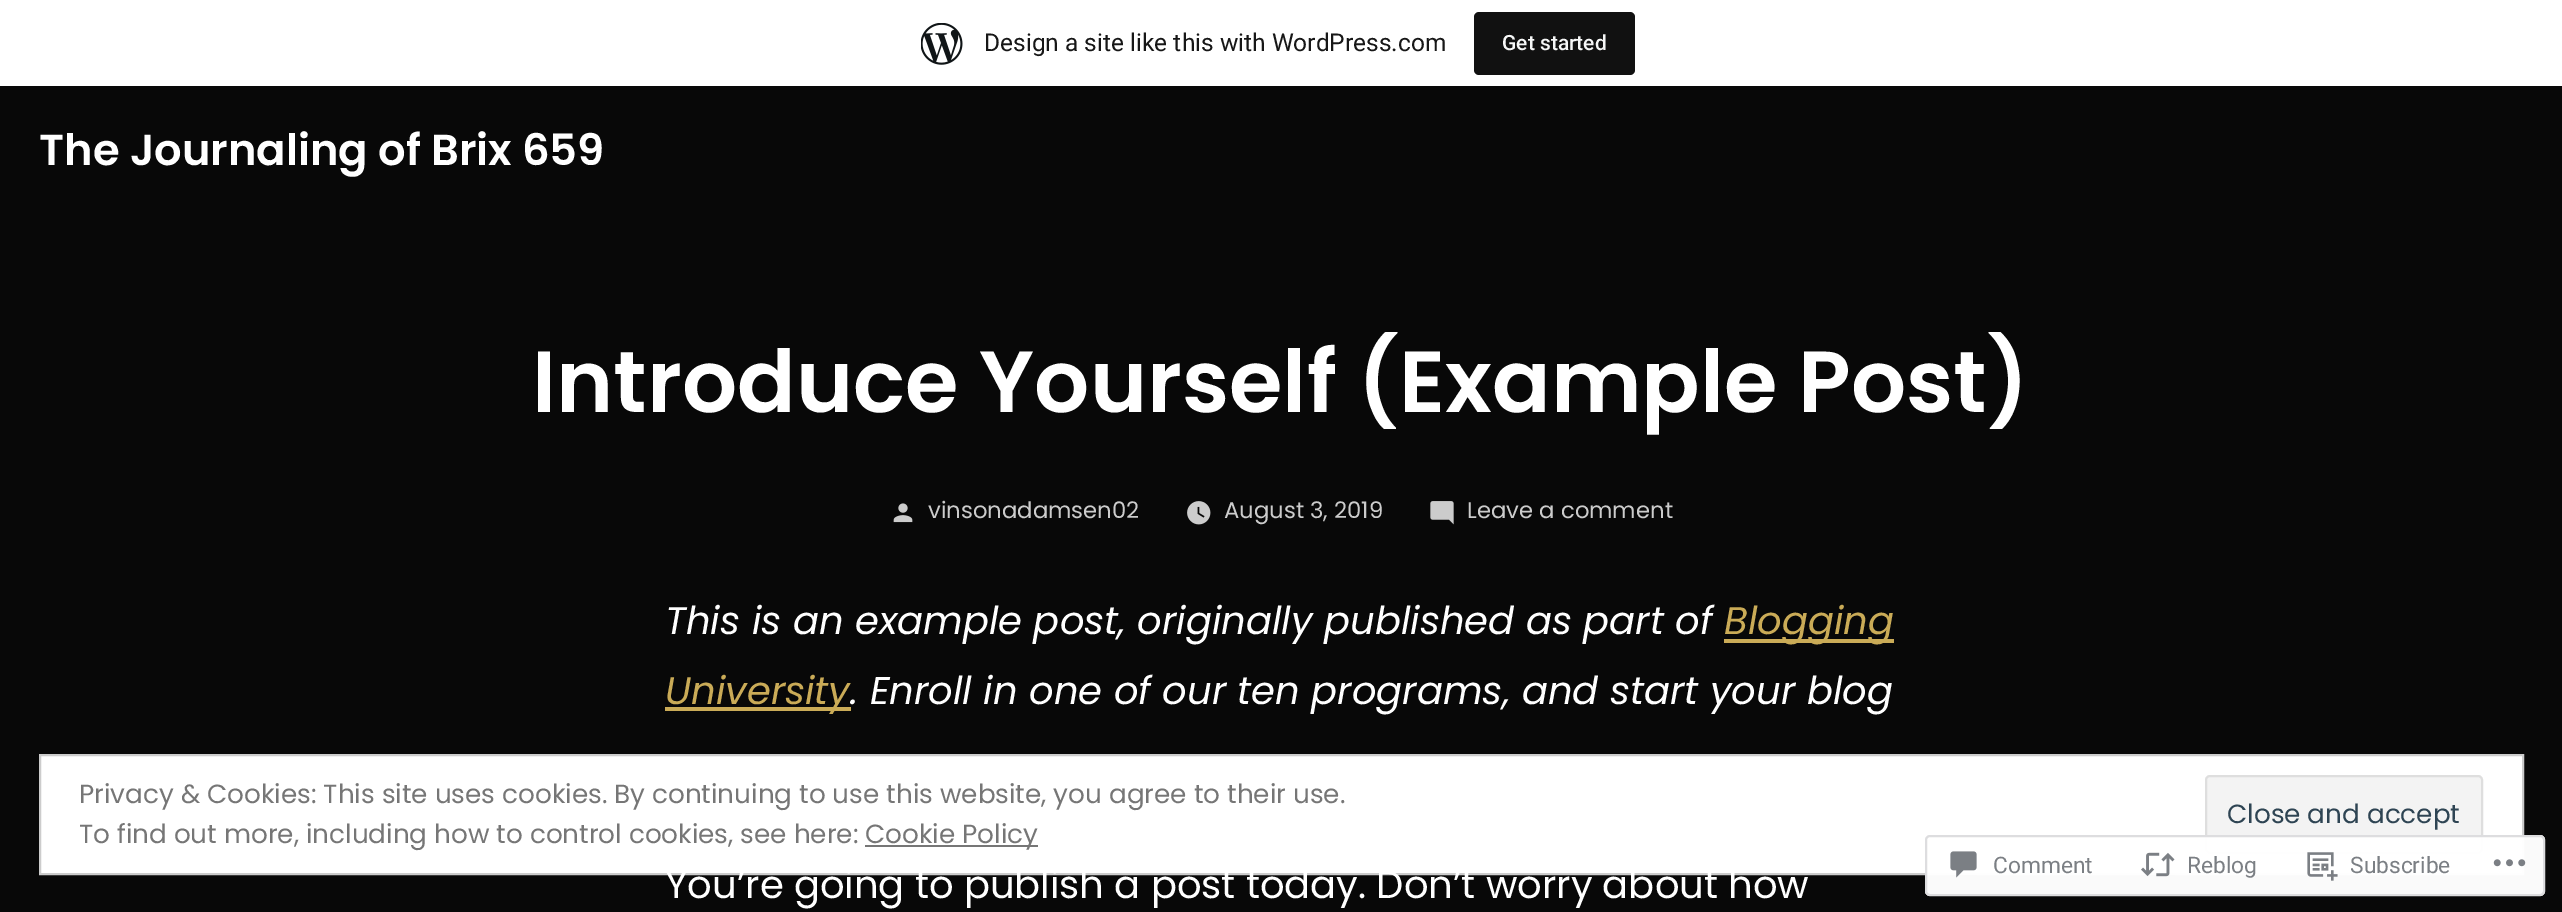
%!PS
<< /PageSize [2562 912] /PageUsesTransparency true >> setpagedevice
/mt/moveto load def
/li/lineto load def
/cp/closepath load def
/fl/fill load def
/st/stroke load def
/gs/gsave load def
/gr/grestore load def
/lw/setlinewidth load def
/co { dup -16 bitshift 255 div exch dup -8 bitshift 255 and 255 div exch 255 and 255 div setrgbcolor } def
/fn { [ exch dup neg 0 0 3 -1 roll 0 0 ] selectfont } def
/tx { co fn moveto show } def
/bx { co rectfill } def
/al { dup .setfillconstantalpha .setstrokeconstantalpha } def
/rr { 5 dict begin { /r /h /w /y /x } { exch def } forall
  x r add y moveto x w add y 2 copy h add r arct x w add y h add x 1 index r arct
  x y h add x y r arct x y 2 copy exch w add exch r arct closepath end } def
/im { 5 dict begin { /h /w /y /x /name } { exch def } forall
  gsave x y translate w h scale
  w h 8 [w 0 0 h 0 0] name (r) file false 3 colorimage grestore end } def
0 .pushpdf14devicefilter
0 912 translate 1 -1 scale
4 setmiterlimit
0 0 2562 912 16#080808 bx
0 0 2562 86 16#FFFFFF bx
(media/1.raw) 921 23 42 42 im
16#111111 co
1474 12 161 63 5 rr fl
(media/2.raw) 893 503 20 20 im
(media/3.raw) 1187 501 24 24 im
(media/4.raw) 1430 501 24 24 im
1724 639 170 4 16#CAAB57 bx
665 707 186 4 16#CAAB57 bx
16#FFFFFF co
40 755 mt 2523 755 li 2523 874 li 40 874 li cp gs fl gr
16#CCCCCC co
2 lw
st
16#F3F3F3 co
2206 776 276 77 4 rr gs fl gr
16#DEDEDE co
st
865 845 173 2 16#767676 bx
0.98 al
16#FFFFFF co
1925 835 620 61 5 rr fl
16#DCDCDE co
1926 836 618 59 4 rr st
1 al
(media/5.raw) 1950 851 27 27 im
(media/6.raw) 2141 852 34 25 im
(media/7.raw) 2307 852 31 29 im
(media/8.raw) 2493 859 33 8 im
(Design a site like this with WordPress.com) 984 51 /Roboto-Regular 24.5 16#171717 tx
(Get started) 1502 50 /Roboto-Medium 21 16#F6F7F7 tx
(The Journaling of Brix 659) 39 165 /Poppins-SemiBold 43.25 16#FFFFFF tx
(Introduce Yourself \(Example Post\)) 532 412 /Poppins-SemiBold 86.6 16#FFFFFF tx
(vinsonadamsen02) 928 518 /Poppins-Regular 22.75 16#CCCCCC tx
(August 3, 2019) 1224 518 /Poppins-Regular 22.75 16#CCCCCC tx
(Leave a comment) 1467 518 /Poppins-Regular 22.75 16#CCCCCC tx
(This is an example post, originally published as part of) 665 634 /Poppins-Italic 38.5 16#FFFFFF tx
(Blogging) 1724 634 /Poppins-Italic 38.5 16#CAAB57 tx
(University) 665 704 /Poppins-Italic 38.5 16#CAAB57 tx
(. Enroll in one of our ten programs, and start your blog) 850 704 /Poppins-Italic 38.5 16#FFFFFF tx
(You’re going to publish a post today. Don’t worry about how) 665 898 /Poppins-Regular 38.5 16#FFFFFF tx
(Privacy & Cookies: This site uses cookies. By continuing to use this website, you agree to their use.) 79 803 /Poppins-Regular 26.25 16#767676 tx
(Close and accept) 2227 823 /Poppins-Regular 26.25 16#2E4453 tx
(To find out more, including how to control cookies, see here:) 79 843 /Poppins-Regular 26.25 16#767676 tx
(Cookie Policy) 865 843 /Poppins-Regular 26.25 16#767676 tx
(Comment) 1993 873 /Roboto-Regular 22.75 16#7B7F84 tx
(Reblog) 2187 873 /Roboto-Regular 22.75 16#7B7F84 tx
(Subscribe) 2350 873 /Roboto-Regular 22.75 16#7B7F84 tx
.poppdf14devicefilter showpage
